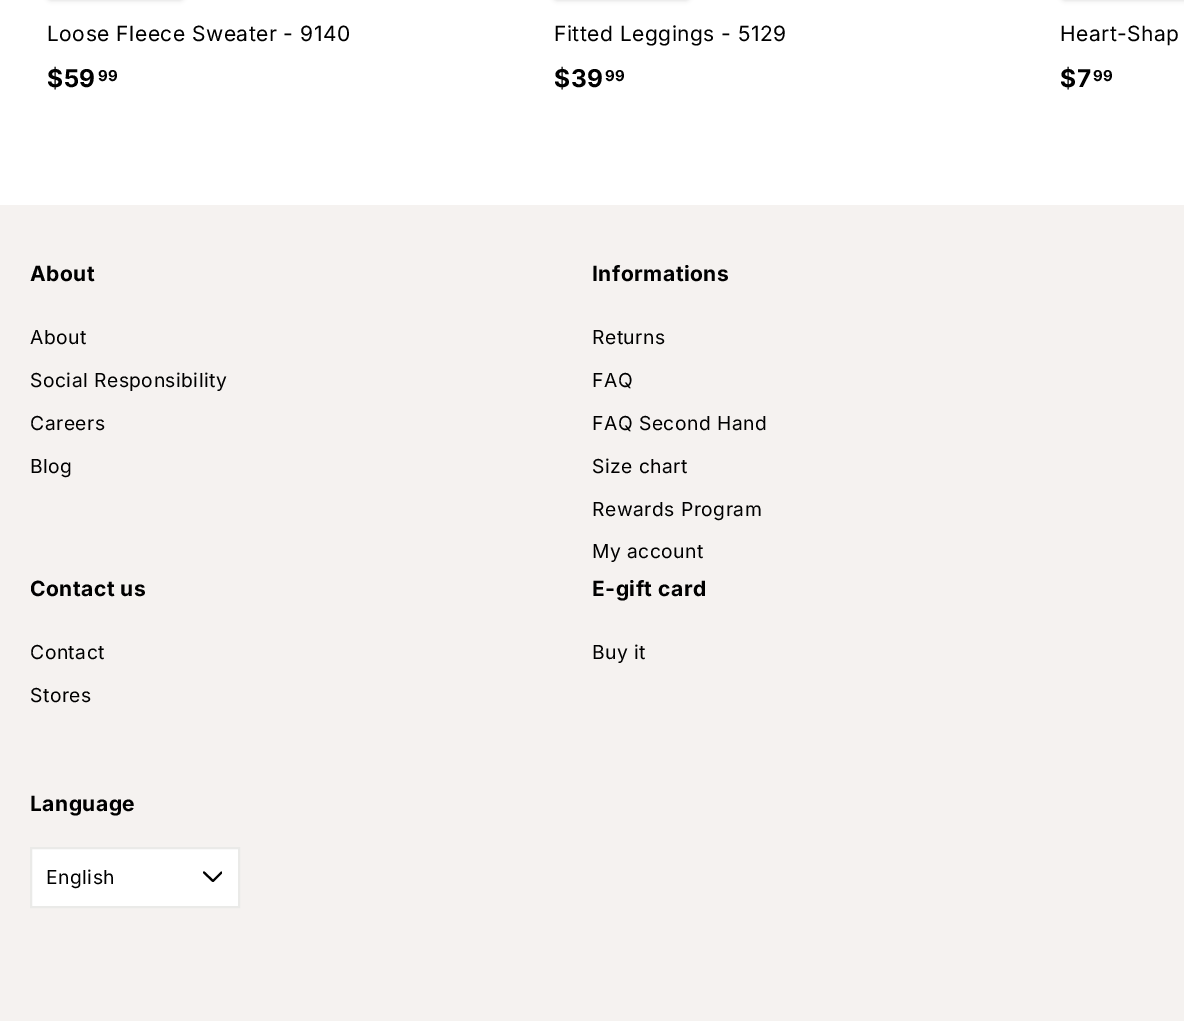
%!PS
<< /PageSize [1184 1021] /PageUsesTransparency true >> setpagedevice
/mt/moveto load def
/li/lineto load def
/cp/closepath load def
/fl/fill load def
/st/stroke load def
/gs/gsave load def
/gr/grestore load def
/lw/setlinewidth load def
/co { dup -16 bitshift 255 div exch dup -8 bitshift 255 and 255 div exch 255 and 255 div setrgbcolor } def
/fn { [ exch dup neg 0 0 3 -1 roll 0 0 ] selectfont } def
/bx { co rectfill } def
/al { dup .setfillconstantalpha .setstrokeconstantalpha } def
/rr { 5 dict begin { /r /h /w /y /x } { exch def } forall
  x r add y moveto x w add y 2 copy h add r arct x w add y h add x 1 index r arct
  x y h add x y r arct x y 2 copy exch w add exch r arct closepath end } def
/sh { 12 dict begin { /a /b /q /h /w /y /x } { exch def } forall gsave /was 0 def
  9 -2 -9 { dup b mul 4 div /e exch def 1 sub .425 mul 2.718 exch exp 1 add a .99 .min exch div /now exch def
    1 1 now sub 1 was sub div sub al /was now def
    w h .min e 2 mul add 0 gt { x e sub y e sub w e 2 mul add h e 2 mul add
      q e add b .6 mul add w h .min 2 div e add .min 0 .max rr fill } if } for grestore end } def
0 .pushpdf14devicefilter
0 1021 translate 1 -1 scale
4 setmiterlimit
0 0 1184 1021 16#FFFFFF bx
16#000000 co
47 -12 137 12 4 2.5 .15 sh
553 -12 137 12 4 2.5 .15 sh
1061 -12 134 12 4 2.5 .15 sh
0 205 1184 816 16#F5F2F0 bx
16#FFFFFF co
31 848 mt 239 848 li 239 907 li 31 907 li cp gs fl gr
16#EAEAE8 co
2 lw
st
gs
203 868 19 19 rectclip
16#000000 co
2.1 lw
1 setlinecap
1 setlinejoin
204 872.5 mt 213 881 li 221.5 872.5 li st
gr
/Inter-Regular 21 fn
16#000000 co
47 41 mt .5 0 (Loose Fleece Sweater - 9140) ashow
/Inter-Bold 24.5 fn
47 87 mt .5 0 ($59) ashow
/Inter-Bold 15 fn
98 81 mt .5 0 (99) ashow
/Inter-Regular 21 fn
554 41 mt .5 0 (Fitted Leggings - 5129) ashow
/Inter-Bold 24.5 fn
554 87 mt .5 0 ($39) ashow
/Inter-Bold 15 fn
605 81 mt .5 0 (99) ashow
/Inter-Regular 21 fn
1060 41 mt .5 0 (Heart-Shap) ashow
/Inter-Bold 24.5 fn
1060 87 mt .5 0 ($7) ashow
/Inter-Bold 15 fn
1093 81 mt .5 0 (99) ashow
/Inter-Bold 21 fn
30 281 mt .5 0 (About) ashow
/Inter-Regular 19.25 fn
30 344 mt .5 0 (About) ashow
30 387 mt .5 0 (Social Responsibility) ashow
30 430 mt .5 0 (Careers) ashow
30 473 mt .5 0 (Blog) ashow
/Inter-Bold 21 fn
592 281 mt .5 0 (Informations) ashow
/Inter-Regular 19.25 fn
592 344 mt .5 0 (Returns) ashow
592 387 mt .5 0 (FAQ) ashow
592 430 mt .5 0 (FAQ Second Hand) ashow
592 473 mt .5 0 (Size chart) ashow
592 516 mt .5 0 (Rewards Program) ashow
592 558 mt .5 0 (My account) ashow
/Inter-Bold 21 fn
30 596 mt .5 0 (Contact us) ashow
/Inter-Regular 19.25 fn
30 659 mt .5 0 (Contact) ashow
30 702 mt .5 0 (Stores) ashow
/Inter-Bold 21 fn
592 596 mt .5 0 (E-gift card) ashow
/Inter-Regular 19.25 fn
592 659 mt .5 0 (Buy it) ashow
/Inter-Bold 21 fn
30 811 mt .5 0 (Language) ashow
/Inter-Regular 19.25 fn
46 884 mt .5 0 (English) ashow
.poppdf14devicefilter showpage
